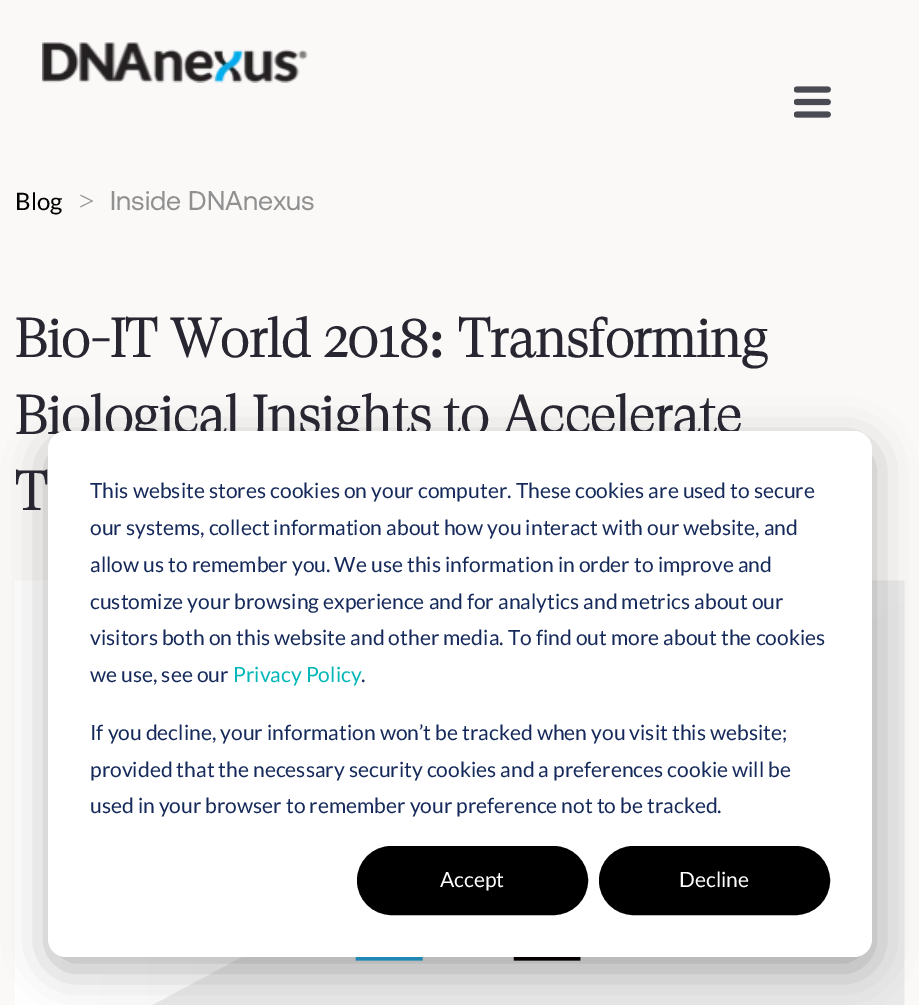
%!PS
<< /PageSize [919 1005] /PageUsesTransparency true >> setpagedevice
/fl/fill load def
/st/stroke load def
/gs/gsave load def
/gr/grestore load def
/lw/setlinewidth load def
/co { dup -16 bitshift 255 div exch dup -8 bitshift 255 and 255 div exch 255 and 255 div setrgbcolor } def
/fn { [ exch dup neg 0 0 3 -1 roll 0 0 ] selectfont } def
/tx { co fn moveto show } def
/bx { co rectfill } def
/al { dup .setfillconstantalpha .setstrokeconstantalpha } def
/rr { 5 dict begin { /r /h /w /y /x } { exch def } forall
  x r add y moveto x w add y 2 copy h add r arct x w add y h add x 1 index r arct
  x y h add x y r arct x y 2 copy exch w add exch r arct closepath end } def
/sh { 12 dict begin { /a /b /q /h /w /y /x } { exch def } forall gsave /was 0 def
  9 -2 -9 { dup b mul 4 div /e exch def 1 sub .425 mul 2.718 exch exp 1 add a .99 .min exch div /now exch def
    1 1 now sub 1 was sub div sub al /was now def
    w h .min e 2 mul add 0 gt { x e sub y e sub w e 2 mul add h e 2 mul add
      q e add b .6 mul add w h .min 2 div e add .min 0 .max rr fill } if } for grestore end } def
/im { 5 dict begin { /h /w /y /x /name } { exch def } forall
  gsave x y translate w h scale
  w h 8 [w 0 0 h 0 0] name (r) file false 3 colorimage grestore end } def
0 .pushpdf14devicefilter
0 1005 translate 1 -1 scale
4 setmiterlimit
0 0 919 1005 16#FAF9F8 bx
(media/1.raw) 42 42 266 41 im
(media/2.raw) 794 86 37 32 im
(media/3.raw) 15 580 890 425 im
16#000000 co
48 443 824 526 18 21 .28 sh
(Blog) 15 210 /Lato-Regular 24 16#000000 tx
(>) 79 210 /LiberationSerif-Regular 27 16#909090 tx
(Inside DNAnexus) 110 210 /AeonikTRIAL-Regular 27 16#909090 tx
(Bio-IT World 2018) 15 357 /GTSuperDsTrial-Bold 54 16#272631 tx
(:) 428 357 /LiberationSerif-Bold 54 16#272631 tx
(Transforming) 458 357 /GTSuperDsTrial-Bold 54 16#272631 tx
(Biological Insights to Accelerate) 15 434 /GTSuperDsTrial-Bold 54 16#272631 tx
(T) 15 510 /GTSuperDsTrial-Bold 54 16#272631 tx
16#FFFFFF co
48 431 824 526 18 rr fl
(This website stores cookies on your computer. These cookies are used to secure) 90 498 /Lato-Regular 21 16#15295A tx
(our systems, collect information about how you interact with our website, and) 90 535 /Lato-Regular 21 16#15295A tx
(allow us to remember you. We use this information in order to improve and) 90 572 /Lato-Regular 21 16#15295A tx
(customize your browsing experience and for analytics and metrics about our) 90 609 /Lato-Regular 21 16#15295A tx
(visitors both on this website and other media. To find out more about the cookies) 90 645 /Lato-Regular 21 16#15295A tx
(we use, see our) 90 682 /Lato-Regular 21 16#15295A tx
(Privacy Policy) 233 682 /Lato-Regular 21 16#03B6B7 tx
(.) 361 682 /Lato-Regular 21 16#15295A tx
(If you decline, your information won’t be tracked when you visit this website;) 90 740 /Lato-Regular 21 16#15295A tx
(provided that the necessary security cookies and a preferences cookie will be) 90 777 /Lato-Regular 21 16#15295A tx
(used in your browser to remember your preference not to be tracked.) 90 813 /Lato-Regular 21 16#15295A tx
16#000000 co
358 847 229 67 33.5 rr gs fl gr
2 lw
st
(Accept) 440 887 /Lato-Regular 21 16#FFFFFF tx
16#000000 co
600 847 229 67 33.5 rr gs fl gr
st
(Decline) 679 887 /Lato-Regular 21 16#FFFFFF tx
.poppdf14devicefilter showpage
